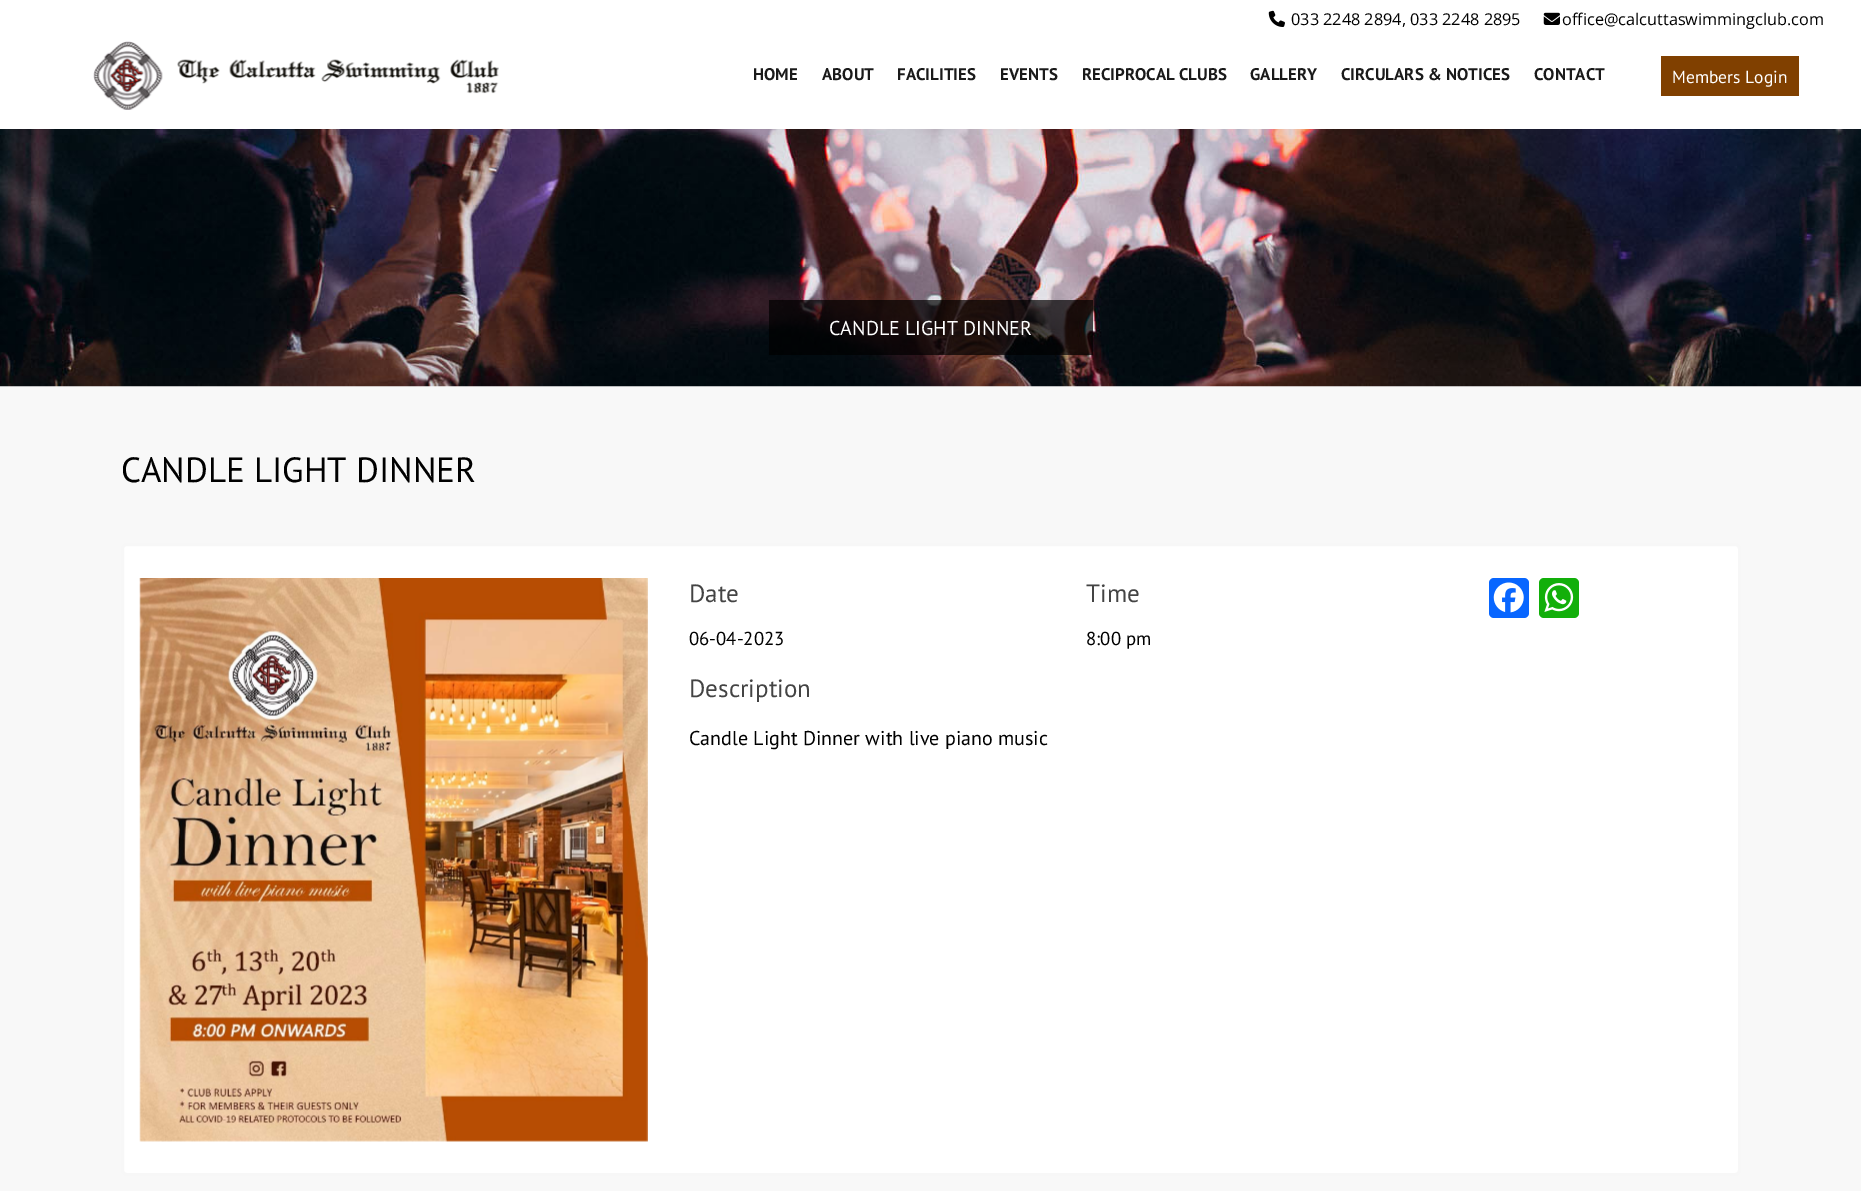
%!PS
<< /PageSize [1861 1191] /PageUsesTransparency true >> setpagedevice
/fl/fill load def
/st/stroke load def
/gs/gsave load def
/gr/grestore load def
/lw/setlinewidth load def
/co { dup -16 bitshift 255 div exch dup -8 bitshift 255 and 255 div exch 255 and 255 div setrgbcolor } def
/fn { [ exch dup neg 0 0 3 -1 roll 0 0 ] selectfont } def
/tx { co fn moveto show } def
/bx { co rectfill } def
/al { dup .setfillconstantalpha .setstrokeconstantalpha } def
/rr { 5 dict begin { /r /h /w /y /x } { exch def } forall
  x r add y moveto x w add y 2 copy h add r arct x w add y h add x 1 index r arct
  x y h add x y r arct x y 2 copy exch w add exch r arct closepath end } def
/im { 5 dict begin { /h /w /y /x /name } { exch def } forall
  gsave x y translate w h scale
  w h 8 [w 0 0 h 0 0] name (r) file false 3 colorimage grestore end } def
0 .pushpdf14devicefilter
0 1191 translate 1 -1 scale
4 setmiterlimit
0 0 1861 1191 16#F8F8F8 bx
0 0 1861 129 16#FFFFFF bx
(media/1.raw) 1268 10 17 17 im
(media/2.raw) 1543 12 17 13 im
(media/3.raw) 93 41 406 69 im
1661 56 138 40 16#804000 bx
(media/4.raw) 0 129 1861 258 im
0.7 al
769 300 324 55 16#000000 bx
1 al
16#FFFFFF co
122.5 544.5 1617 630 4.5 rr gs fl gr
16#F7F7F7 co
3 lw
st
(media/5.raw) 139 578 509 564 im
16#0866FF co
1489 578 40 40 5 rr fl
(media/6.raw) 1493 582 31 31 im
16#12AF0A co
1539 578 40 40 5 rr fl
(media/7.raw) 1544 583 30 29 im
(033 2248 2894, 033 2248 2895) 1291 25 /OpenSans-Regular 16.25 16#000000 tx
(office@calcuttaswimmingclub.com) 1562 25 /OpenSans-Regular 16.25 16#000000 tx
(HOME) 753 80 /PTSans-Bold 16.9 16#1A1A1A tx
(ABOUT) 822 80 /PTSans-Bold 16.9 16#1A1A1A tx
(FACILITIES) 897 80 /PTSans-Bold 16.9 16#1A1A1A tx
(EVENTS) 1000 80 /PTSans-Bold 16.9 16#1A1A1A tx
(RECIPROCAL CLUBS) 1082 80 /PTSans-Bold 16.9 16#1A1A1A tx
(GALLERY) 1250 80 /PTSans-Bold 16.9 16#1A1A1A tx
(CIRCULARS & NOTICES) 1341 80 /PTSans-Bold 16.9 16#1A1A1A tx
(CONTACT) 1534 80 /PTSans-Bold 16.9 16#1A1A1A tx
(Members Login) 1672 83 /PTSans-Regular 17.5 16#FFFFFF tx
(CANDLE LIGHT DINNER) 829 335 /PTSans-Regular 20 16#FFFFFF tx
(CANDLE LIGHT DINNER) 121 482 /PTSans-Regular 35 16#000000 tx
(Date) 689 602 /PTSans-Regular 25 16#444444 tx
(06-04-2023) 689 645 /PTSans-Regular 18.75 16#000000 tx
(Description) 689 697 /PTSans-Regular 25 16#444444 tx
(Candle Light Dinner with live piano music) 689 745 /PTSans-Regular 20 16#000000 tx
(Time) 1086 602 /PTSans-Regular 25 16#444444 tx
(8:00 pm) 1086 645 /PTSans-Regular 18.75 16#000000 tx
.poppdf14devicefilter showpage
